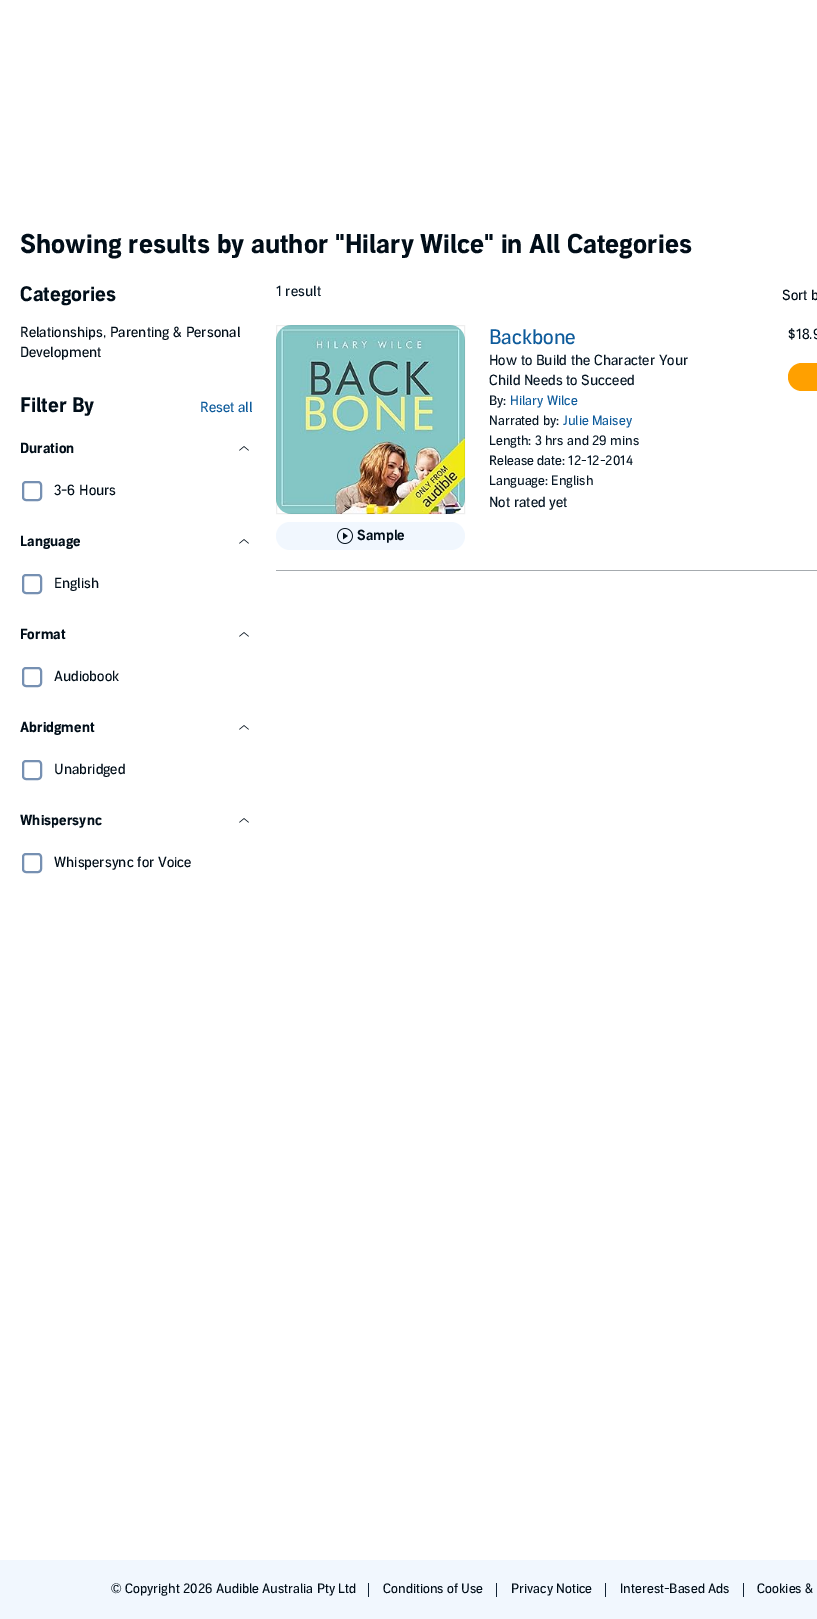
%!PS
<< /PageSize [817 1619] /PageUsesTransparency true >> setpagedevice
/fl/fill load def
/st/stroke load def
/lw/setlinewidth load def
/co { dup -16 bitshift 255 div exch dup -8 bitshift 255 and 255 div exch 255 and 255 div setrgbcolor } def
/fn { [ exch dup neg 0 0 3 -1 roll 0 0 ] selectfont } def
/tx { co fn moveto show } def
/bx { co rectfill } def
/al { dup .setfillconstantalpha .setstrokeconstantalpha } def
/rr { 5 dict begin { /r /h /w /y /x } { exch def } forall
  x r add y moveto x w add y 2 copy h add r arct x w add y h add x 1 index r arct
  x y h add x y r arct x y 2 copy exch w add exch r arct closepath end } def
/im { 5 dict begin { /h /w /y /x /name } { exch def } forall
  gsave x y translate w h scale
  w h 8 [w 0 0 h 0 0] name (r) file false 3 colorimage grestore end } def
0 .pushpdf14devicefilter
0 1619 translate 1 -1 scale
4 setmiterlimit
0 0 817 1619 16#FFFFFF bx
(media/1.raw) 239 446 10 5 im
16#7690B2 co
2 lw
23 482 18 18 3 rr st
(media/1.raw) 239 539 10 5 im
23 575 18 18 3 rr st
(media/1.raw) 239 632 10 5 im
23 668 18 18 3 rr st
(media/1.raw) 239 725 10 5 im
23 761 18 18 3 rr st
(media/1.raw) 239 818 10 5 im
23 854 18 18 3 rr st
(media/2.raw) 276 325 189 189 im
0.08 al
16#212325 co
1 lw
276.5 325.5 188 188 rectstroke
1 al
16#F1F7FE co
276 522 189 28 14 rr fl
(media/3.raw) 337 528 16 16 im
16#FFA000 co
788 363 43 28 14 rr fl
276 570 541 1 16#A6ABAF bx
0 1560 817 59 16#F1F7FE bx
368 1583 1 14 16#112235 bx
496 1583 1 14 16#112235 bx
605 1583 1 14 16#112235 bx
743 1583 1 14 16#112235 bx
(Showing results by author "Hilary Wilce" in All Categories) 20 253 /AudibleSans-Bold 26 16#010E19 tx
(Categories) 20 301 /AudibleSans-Bold 20 16#010E19 tx
(Relationships, Parenting & Personal) 20 337 /AudibleSans-Regular 14 16#010E19 tx
(Development) 20 357 /AudibleSans-Regular 14 16#010E19 tx
(Filter By) 20 412 /AudibleSans-Bold 20 16#010E19 tx
(Reset all) 200 412 /AudibleSans-Regular 14 16#0E5B9B tx
(Duration) 20 453 /AudibleSans-Bold 14 16#010E19 tx
(3-6 Hours) 54 495 /AudibleSans-Regular 14 16#010E19 tx
(Language) 20 546 /AudibleSans-Bold 14 16#010E19 tx
(English) 54 588 /AudibleSans-Regular 14 16#010E19 tx
(Format) 20 639 /AudibleSans-Bold 14 16#010E19 tx
(Audiobook) 54 681 /AudibleSans-Regular 14 16#010E19 tx
(Abridgment) 20 732 /AudibleSans-Bold 14 16#010E19 tx
(Unabridged) 54 774 /AudibleSans-Regular 14 16#010E19 tx
(Whispersync) 20 825 /AudibleSans-Bold 14 16#010E19 tx
(Whispersync for Voice) 54 867 /AudibleSans-Regular 14 16#010E19 tx
(1 result) 276 296 /AudibleSans-Regular 14 16#061624 tx
(Sort b) 782 300 /AudibleSans-Regular 14 16#010E19 tx
(Backbone) 489 344 /AudibleSans-Regular 20 16#0E5B9B tx
(How to Build the Character Your) 489 365 /AudibleSans-Regular 14 16#061624 tx
(Child Needs to Succeed) 489 385 /AudibleSans-Regular 14 16#061624 tx
(By:) 489 405 /AudibleSans-Regular 13 16#061624 tx
(Hilary Wilce) 510 405 /AudibleSans-Regular 13 16#0E5B9B tx
(Narrated by:) 489 425 /AudibleSans-Regular 13 16#061624 tx
(Julie Maisey) 563 425 /AudibleSans-Regular 13 16#0E5B9B tx
(Length: 3 hrs and 29 mins) 489 445 /AudibleSans-Regular 13 16#061624 tx
(Release date: 12-12-2014) 489 465 /AudibleSans-Regular 13 16#061624 tx
(Language: English) 489 485 /AudibleSans-Regular 13 16#061624 tx
(Not rated yet) 489 507 /AudibleSans-Regular 14 16#061624 tx
(Sample) 357 540 /AudibleSans-SemiBold 14 16#010E19 tx
($18.9) 788 339 /AudibleSans-Regular 14 16#010E19 tx
(© Copyright 2026 Audible Australia Pty Ltd) 111 1593 /AudibleSans-Regular 13 16#010E19 tx
(Conditions of Use) 383 1593 /AudibleSans-Regular 13 16#010E19 tx
(Privacy Notice) 511 1593 /AudibleSans-Regular 13 16#010E19 tx
(Interest-Based Ads) 620 1593 /AudibleSans-Regular 13 16#010E19 tx
(Cookies &) 757 1593 /AudibleSans-Regular 13 16#010E19 tx
.poppdf14devicefilter showpage
